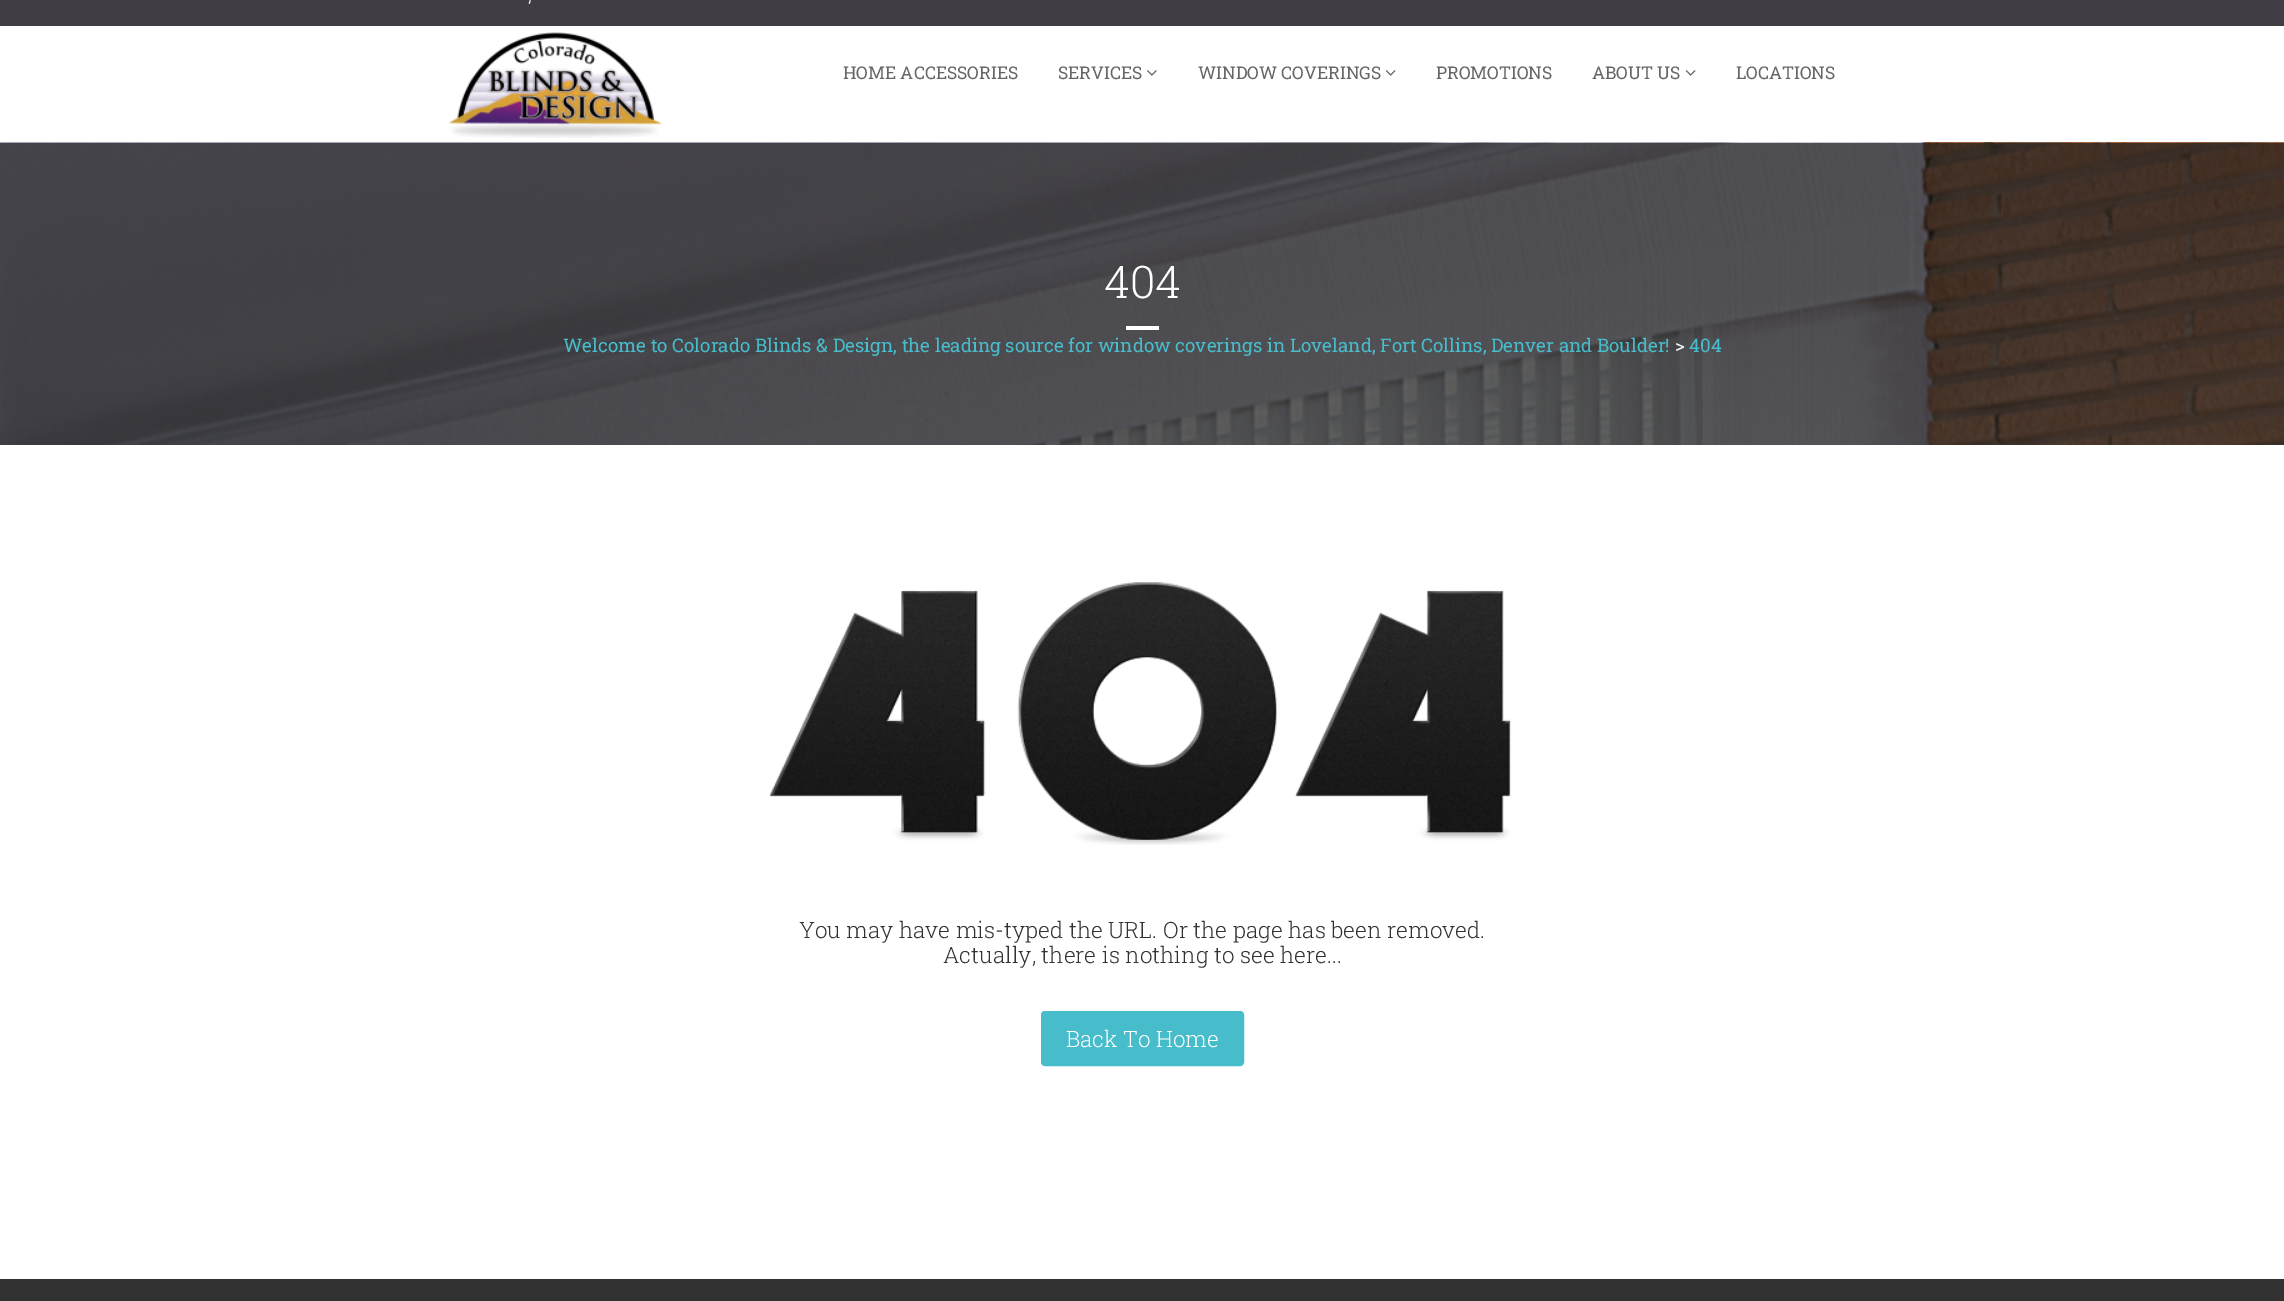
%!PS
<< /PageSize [2284 1301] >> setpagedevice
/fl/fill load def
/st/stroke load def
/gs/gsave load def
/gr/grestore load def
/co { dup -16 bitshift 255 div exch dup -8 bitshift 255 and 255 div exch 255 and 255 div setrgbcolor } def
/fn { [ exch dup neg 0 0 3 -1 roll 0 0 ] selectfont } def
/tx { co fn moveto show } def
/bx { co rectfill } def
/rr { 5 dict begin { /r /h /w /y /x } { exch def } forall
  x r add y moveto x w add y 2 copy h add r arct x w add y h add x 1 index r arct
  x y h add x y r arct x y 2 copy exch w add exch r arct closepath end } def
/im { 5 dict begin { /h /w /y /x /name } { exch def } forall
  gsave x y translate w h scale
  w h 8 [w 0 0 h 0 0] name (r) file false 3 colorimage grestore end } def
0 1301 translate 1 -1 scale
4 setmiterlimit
0 0 2284 1301 16#FFFFFF bx
0 0 2284 26 16#403E44 bx
(media/1.raw) 448 32 215 106 im
(media/2.raw) 1147 70 10 6 im
(media/3.raw) 1385 70 11 6 im
(media/3.raw) 1685 70 11 6 im
(media/4.raw) 0 142 2284 303 im
1126 326 33 4 16#FFFFFF bx
(media/5.raw) 770 582 741 263 im
16#47BDCC co
1041.5 1011.5 202 54 3.5 rr gs fl gr
st
0 1279 2284 22 16#323232 bx
(,) 528 2 /OpenSans-Regular 16 16#FFFFFF tx
(HOME ACCESSORIES) 843 79 /RobotoSlab-Regular 17.5 16#666666 tx
(SERVICES) 1058 79 /RobotoSlab-Regular 17.5 16#666666 tx
(WINDOW COVERINGS) 1198 79 /RobotoSlab-Regular 17.5 16#666666 tx
(PROMOTIONS) 1436 79 /RobotoSlab-Regular 17.5 16#666666 tx
(ABOUT US) 1592 79 /RobotoSlab-Regular 17.5 16#666666 tx
(LOCATIONS) 1736 79 /RobotoSlab-Regular 17.5 16#666666 tx
(404) 1104 298 /RobotoSlab-Light 45 16#FFFFFF tx
(Welcome to Colorado Blinds & Design, the leading source for window coverings in Loveland, Fort Collins, Denver and Boulder!) 563 352 /RobotoSlab-Regular 18.75 16#47BDCC tx
(>) 1675 352 /RobotoSlab-Regular 18.75 16#FFFFFF tx
(404) 1689 352 /RobotoSlab-Regular 18.75 16#47BDCC tx
(You may have mis-typed the URL. Or the page has been removed.) 799 938 /RobotoSlab-Light 22.5 16#323232 tx
(Actually, there is nothing to see here...) 943 963 /RobotoSlab-Light 22.5 16#323232 tx
(Back To Home) 1066 1047 /RobotoSlab-Light 22.5 16#FFFFFF tx
showpage
